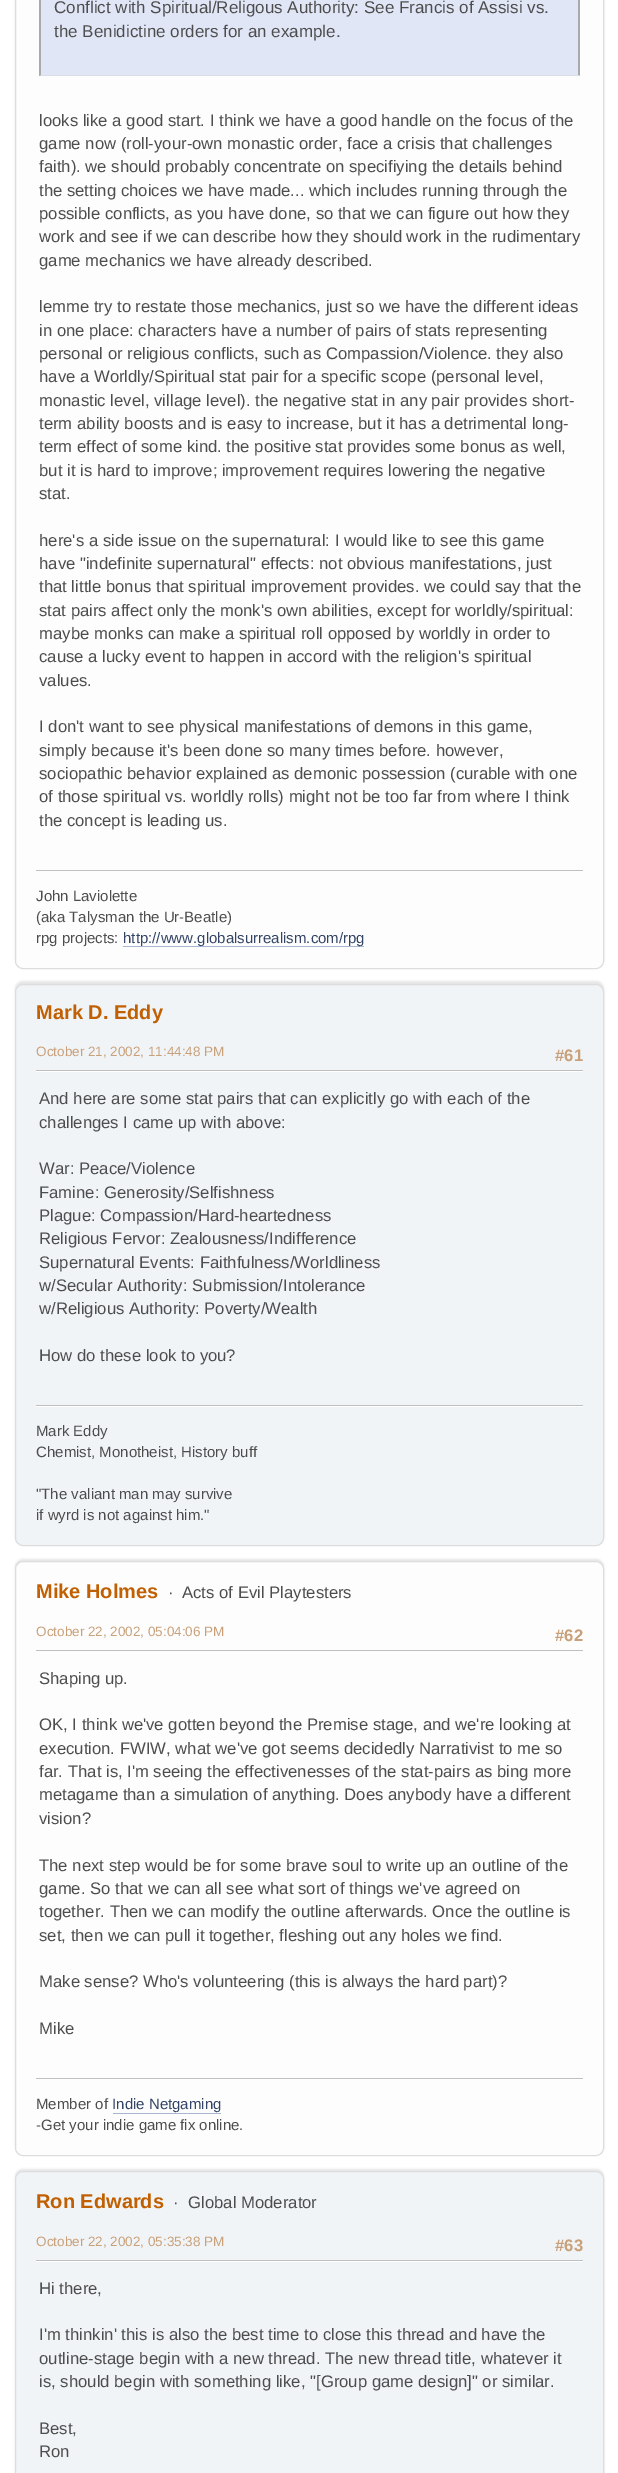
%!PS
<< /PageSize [618 2473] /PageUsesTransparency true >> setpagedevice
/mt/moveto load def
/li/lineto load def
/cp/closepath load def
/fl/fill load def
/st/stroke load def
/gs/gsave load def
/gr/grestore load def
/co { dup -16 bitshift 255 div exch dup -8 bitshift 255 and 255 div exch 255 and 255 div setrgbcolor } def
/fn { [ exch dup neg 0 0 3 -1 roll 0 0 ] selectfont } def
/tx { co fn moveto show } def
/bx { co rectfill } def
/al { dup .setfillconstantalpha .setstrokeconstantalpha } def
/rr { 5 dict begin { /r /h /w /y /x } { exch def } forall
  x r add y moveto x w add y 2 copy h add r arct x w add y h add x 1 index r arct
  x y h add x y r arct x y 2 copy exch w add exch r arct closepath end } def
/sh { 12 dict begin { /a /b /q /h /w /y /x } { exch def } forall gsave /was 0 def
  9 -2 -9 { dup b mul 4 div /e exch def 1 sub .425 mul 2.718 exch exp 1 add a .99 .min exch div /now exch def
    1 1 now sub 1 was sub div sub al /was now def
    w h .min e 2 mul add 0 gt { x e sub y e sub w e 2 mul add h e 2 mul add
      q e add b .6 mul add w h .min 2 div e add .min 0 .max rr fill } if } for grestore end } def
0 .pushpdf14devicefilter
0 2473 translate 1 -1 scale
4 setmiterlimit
0 0 618 2473 16#FFFFFF bx
16#000000 co
15 -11 589 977 8 1 .1 sh
16#FDFDFD co
15.5 -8.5 588 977 7.5 rr gs fl gr
16#DDDDDD co
st
41 0 537 75 16#E0E6F6 bx
16#AAAAAA co
580 -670 mt 580 76 li 578 75 li 578 -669 li cp fl
16#D6DFE2 co
580 76 mt 39 76 li 41 75 li 578 75 li cp fl
16#AAAAAA co
39 76 mt 39 -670 li 41 -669 li 41 75 li cp fl
36 870 547 1 16#BFBFBF bx
123 946 241 1 16#A8B6CF bx
16#000000 co
15 981 589 563 8 1 .1 sh
16#F0F4F7 co
15.5 984.5 588 561 7.5 rr gs fl gr
16#DDDDDD co
st
36 1071 547 1 16#FFFFFF bx
36 1070 547 1 16#BFBFBF bx
36 1406 547 1 16#FFFFFF bx
36 1405 547 1 16#BFBFBF bx
16#000000 co
15 1559 589 595 8 1 .1 sh
16#FDFDFD co
15.5 1561.5 588 594 7.5 rr gs fl gr
16#DDDDDD co
st
36 1650 547 1 16#BFBFBF bx
36 2078 547 1 16#BFBFBF bx
113 2113 108 1 16#A8B6CF bx
16#000000 co
15 2169 589 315 8 1 .1 sh
16#F0F4F7 co
15.5 2171.5 588 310 7.5 rr gs fl gr
16#DDDDDD co
st
36 2261 547 1 16#FFFFFF bx
36 2260 547 1 16#BFBFBF bx
(Conflict with Spiritual/Religous Authority: See Francis of Assisi vs.) 54 13 /LiberationSans-Regular 17 16#4D4D4D tx
(the Benidictine orders for an example.) 54 37 /LiberationSans-Regular 17 16#4D4D4D tx
(looks like a good start. I think we have a good handle on the focus of the) 39 126 /LiberationSans-Regular 16.7 16#4D4D4D tx
(game now \(roll-your-own monastic order, face a crisis that challenges) 39 149 /LiberationSans-Regular 16.7 16#4D4D4D tx
(faith\). we should probably concentrate on specifiying the details behind) 39 172 /LiberationSans-Regular 16.7 16#4D4D4D tx
(the setting choices we have made... which includes running through the) 39 196 /LiberationSans-Regular 16.7 16#4D4D4D tx
(possible conflicts, as you have done, so that we can figure out how they) 39 219 /LiberationSans-Regular 16.7 16#4D4D4D tx
(work and see if we can describe how they should work in the rudimentary) 39 242 /LiberationSans-Regular 16.7 16#4D4D4D tx
(game mechanics we have already described.) 39 266 /LiberationSans-Regular 16.7 16#4D4D4D tx
(lemme try to restate those mechanics, just so we have the different ideas) 39 312 /LiberationSans-Regular 16.7 16#4D4D4D tx
(in one place: characters have a number of pairs of stats representing) 39 336 /LiberationSans-Regular 16.7 16#4D4D4D tx
(personal or religious conflicts, such as Compassion/Violence. they also) 39 359 /LiberationSans-Regular 16.7 16#4D4D4D tx
(have a Worldly/Spiritual stat pair for a specific scope \(personal level,) 39 382 /LiberationSans-Regular 16.7 16#4D4D4D tx
(monastic level, village level\). the negative stat in any pair provides short-) 39 406 /LiberationSans-Regular 16.7 16#4D4D4D tx
(term ability boosts and is easy to increase, but it has a detrimental long-) 39 429 /LiberationSans-Regular 16.7 16#4D4D4D tx
(term effect of some kind. the positive stat provides some bonus as well,) 39 452 /LiberationSans-Regular 16.7 16#4D4D4D tx
(but it is hard to improve; improvement requires lowering the negative) 39 476 /LiberationSans-Regular 16.7 16#4D4D4D tx
(stat.) 39 499 /LiberationSans-Regular 16.7 16#4D4D4D tx
(here's a side issue on the supernatural: I would like to see this game) 39 546 /LiberationSans-Regular 16.7 16#4D4D4D tx
(have "indefinite supernatural" effects: not obvious manifestations, just) 39 569 /LiberationSans-Regular 16.7 16#4D4D4D tx
(that little bonus that spiritual improvement provides. we could say that the) 39 592 /LiberationSans-Regular 16.7 16#4D4D4D tx
(stat pairs affect only the monk's own abilities, except for worldly/spiritual:) 39 616 /LiberationSans-Regular 16.7 16#4D4D4D tx
(maybe monks can make a spiritual roll opposed by worldly in order to) 39 639 /LiberationSans-Regular 16.7 16#4D4D4D tx
(cause a lucky event to happen in accord with the religion's spiritual) 39 662 /LiberationSans-Regular 16.7 16#4D4D4D tx
(values.) 39 686 /LiberationSans-Regular 16.7 16#4D4D4D tx
(I don't want to see physical manifestations of demons in this game,) 39 732 /LiberationSans-Regular 16.7 16#4D4D4D tx
(simply because it's been done so many times before. however,) 39 756 /LiberationSans-Regular 16.7 16#4D4D4D tx
(sociopathic behavior explained as demonic possession \(curable with one) 39 779 /LiberationSans-Regular 16.7 16#4D4D4D tx
(of those spiritual vs. worldly rolls\) might not be too far from where I think) 39 802 /LiberationSans-Regular 16.7 16#4D4D4D tx
(the concept is leading us.) 39 826 /LiberationSans-Regular 16.7 16#4D4D4D tx
(John Laviolette) 36 901 /LiberationSans-Regular 15 16#4D4D4D tx
(\(aka Talysman the Ur-Beatle\)) 36 922 /LiberationSans-Regular 15 16#4D4D4D tx
(rpg projects:) 36 943 /LiberationSans-Regular 15 16#4D4D4D tx
(http://www.globalsurrealism.com/rpg) 123 943 /LiberationSans-Regular 15 16#334466 tx
(Mark D. Eddy) 36 1019 /LiberationSans-Bold 20 16#C06002 tx
(October 21, 2002, 11:44:48 PM) 36 1056 /LiberationSans-Regular 13.5 16#C8A079 tx
(#61) 555 1061 /LiberationSans-Bold 16.7 16#C8A079 tx
(And here are some stat pairs that can explicitly go with each of the) 39 1104 /LiberationSans-Regular 16.7 16#4D4D4D tx
(challenges I came up with above:) 39 1128 /LiberationSans-Regular 16.7 16#4D4D4D tx
(War: Peace/Violence) 39 1174 /LiberationSans-Regular 16.7 16#4D4D4D tx
(Famine: Generosity/Selfishness) 39 1198 /LiberationSans-Regular 16.7 16#4D4D4D tx
(Plague: Compassion/Hard-heartedness) 39 1221 /LiberationSans-Regular 16.7 16#4D4D4D tx
(Religious Fervor: Zealousness/Indifference) 39 1244 /LiberationSans-Regular 16.7 16#4D4D4D tx
(Supernatural Events: Faithfulness/Worldliness) 39 1268 /LiberationSans-Regular 16.7 16#4D4D4D tx
(w/Secular Authority: Submission/Intolerance) 39 1291 /LiberationSans-Regular 16.7 16#4D4D4D tx
(w/Religious Authority: Poverty/Wealth) 39 1314 /LiberationSans-Regular 16.7 16#4D4D4D tx
(How do these look to you?) 39 1361 /LiberationSans-Regular 16.7 16#4D4D4D tx
(Mark Eddy) 36 1436 /LiberationSans-Regular 15 16#4D4D4D tx
(Chemist, Monotheist, History buff) 36 1457 /LiberationSans-Regular 15 16#4D4D4D tx
("The valiant man may survive) 36 1499 /LiberationSans-Regular 15 16#4D4D4D tx
(if wyrd is not against him.") 36 1520 /LiberationSans-Regular 15 16#4D4D4D tx
(Mike Holmes) 36 1598 /LiberationSans-Bold 20 16#C06002 tx
(·) 168 1598 /LiberationSans-Regular 16.7 16#4D4D4D tx
(Acts of Evil Playtesters) 182 1598 /LiberationSans-Regular 16.7 16#4D4D4D tx
(October 22, 2002, 05:04:06 PM) 36 1636 /LiberationSans-Regular 13.5 16#C8A079 tx
(#62) 555 1641 /LiberationSans-Bold 16.7 16#C8A079 tx
(Shaping up.) 39 1684 /LiberationSans-Regular 16.7 16#4D4D4D tx
(OK, I think we've gotten beyond the Premise stage, and we're looking at) 39 1730 /LiberationSans-Regular 16.7 16#4D4D4D tx
(execution. FWIW, what we've got seems decidedly Narrativist to me so) 39 1754 /LiberationSans-Regular 16.7 16#4D4D4D tx
(far. That is, I'm seeing the effectivenesses of the stat-pairs as bing more) 39 1777 /LiberationSans-Regular 16.7 16#4D4D4D tx
(metagame than a simulation of anything. Does anybody have a different) 39 1800 /LiberationSans-Regular 16.7 16#4D4D4D tx
(vision?) 39 1824 /LiberationSans-Regular 16.7 16#4D4D4D tx
(The next step would be for some brave soul to write up an outline of the) 39 1871 /LiberationSans-Regular 16.7 16#4D4D4D tx
(game. So that we can all see what sort of things we've agreed on) 39 1894 /LiberationSans-Regular 16.7 16#4D4D4D tx
(together. Then we can modify the outline afterwards. Once the outline is) 39 1917 /LiberationSans-Regular 16.7 16#4D4D4D tx
(set, then we can pull it together, fleshing out any holes we find.) 39 1941 /LiberationSans-Regular 16.7 16#4D4D4D tx
(Make sense? Who's volunteering \(this is always the hard part\)?) 39 1987 /LiberationSans-Regular 16.7 16#4D4D4D tx
(Mike) 39 2034 /LiberationSans-Regular 16.7 16#4D4D4D tx
(Member of) 36 2109 /LiberationSans-Regular 15 16#4D4D4D tx
(Indie Netgaming) 112 2109 /LiberationSans-Regular 15 16#334466 tx
(-Get your indie game fix online.) 36 2130 /LiberationSans-Regular 15 16#4D4D4D tx
(Ron Edwards) 36 2208 /LiberationSans-Bold 20 16#C06002 tx
(·) 173 2208 /LiberationSans-Regular 16.7 16#4D4D4D tx
(Global Moderator) 188 2208 /LiberationSans-Regular 16.7 16#4D4D4D tx
(October 22, 2002, 05:35:38 PM) 36 2246 /LiberationSans-Regular 13.5 16#C8A079 tx
(#63) 555 2251 /LiberationSans-Bold 16.7 16#C8A079 tx
(Hi there,) 39 2294 /LiberationSans-Regular 16.7 16#4D4D4D tx
(I'm thinkin' this is also the best time to close this thread and have the) 39 2340 /LiberationSans-Regular 16.7 16#4D4D4D tx
(outline-stage begin with a new thread. The new thread title, whatever it) 39 2364 /LiberationSans-Regular 16.7 16#4D4D4D tx
(is, should begin with something like, "[Group game design]" or similar.) 39 2387 /LiberationSans-Regular 16.7 16#4D4D4D tx
(Best,) 39 2434 /LiberationSans-Regular 16.7 16#4D4D4D tx
(Ron) 39 2457 /LiberationSans-Regular 16.7 16#4D4D4D tx
.poppdf14devicefilter showpage
